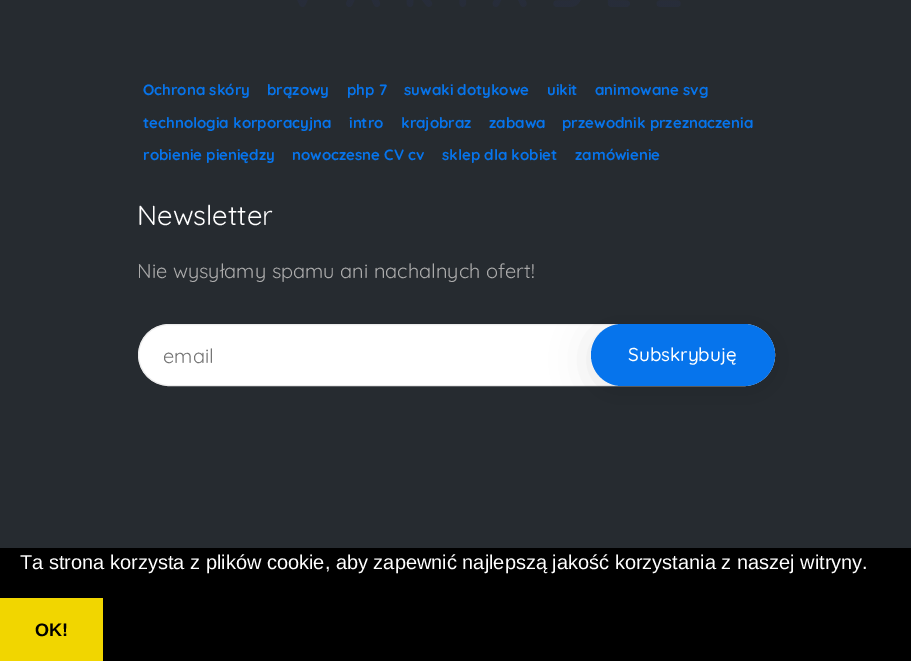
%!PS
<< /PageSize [911 661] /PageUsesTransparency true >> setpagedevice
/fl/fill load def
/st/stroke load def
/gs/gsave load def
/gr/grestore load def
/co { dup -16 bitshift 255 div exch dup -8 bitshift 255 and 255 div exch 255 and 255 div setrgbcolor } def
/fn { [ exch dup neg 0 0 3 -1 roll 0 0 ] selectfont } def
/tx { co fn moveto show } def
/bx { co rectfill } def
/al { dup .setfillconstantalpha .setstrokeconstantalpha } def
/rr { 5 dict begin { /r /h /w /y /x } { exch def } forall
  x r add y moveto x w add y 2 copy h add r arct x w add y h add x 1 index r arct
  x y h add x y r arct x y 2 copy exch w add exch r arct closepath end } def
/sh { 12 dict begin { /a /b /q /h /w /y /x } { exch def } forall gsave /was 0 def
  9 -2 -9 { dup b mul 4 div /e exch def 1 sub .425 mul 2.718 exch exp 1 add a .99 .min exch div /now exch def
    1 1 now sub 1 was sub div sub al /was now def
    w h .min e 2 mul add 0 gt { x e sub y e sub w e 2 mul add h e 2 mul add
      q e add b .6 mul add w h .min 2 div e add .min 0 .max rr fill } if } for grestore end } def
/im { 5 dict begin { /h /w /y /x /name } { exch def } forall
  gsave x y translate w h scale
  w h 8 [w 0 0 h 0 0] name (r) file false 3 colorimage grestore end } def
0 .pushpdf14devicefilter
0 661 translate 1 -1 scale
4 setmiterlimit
0 0 911 661 16#262B30 bx
(media/1.raw) 297 0 384 7 im
16#FFFFFF co
138.5 324.5 636 61 30.5 rr gs fl gr
16#ECECEC co
st
16#000000 co
591 329 184 62 31 19 .1 sh
16#0674EC co
591 324 184 62 31 rr fl
0 548 911 113 16#000000 bx
0 598 103 63 16#F1D600 bx
(Ochrona skóry) 143 95 /Quicksand-Bold 15 16#0674EC tx
(brązowy) 267 95 /Quicksand-Bold 15 16#0674EC tx
(php 7) 347 95 /Quicksand-Bold 15 16#0674EC tx
(suwaki dotykowe) 404 95 /Quicksand-Bold 15 16#0674EC tx
(uikit) 547 95 /Quicksand-Bold 15 16#0674EC tx
(animowane svg) 595 95 /Quicksand-Bold 15 16#0674EC tx
(technologia korporacyjna) 143 128 /Quicksand-Bold 15 16#0674EC tx
(intro) 349 128 /Quicksand-Bold 15 16#0674EC tx
(krajobraz) 401 128 /Quicksand-Bold 15 16#0674EC tx
(zabawa) 489 128 /Quicksand-Bold 15 16#0674EC tx
(przewodnik przeznaczenia) 562 128 /Quicksand-Bold 15 16#0674EC tx
(robienie pieniędzy) 143 160 /Quicksand-Bold 15 16#0674EC tx
(nowoczesne CV cv) 292 160 /Quicksand-Bold 15 16#0674EC tx
(sklep dla kobiet) 442 160 /Quicksand-Bold 15 16#0674EC tx
(zamówienie) 575 160 /Quicksand-Bold 15 16#0674EC tx
(Newsletter) 137 225 /Quicksand-Regular 27.5 16#FFFFFF tx
(Nie wysyłamy spamu ani nachalnych ofert!) 137 278 /Quicksand-Regular 20 16#ABABAB tx
(email) 163 363 /Quicksand-Regular 20 16#757575 tx
(Subskrybuję) 628 361 /Quicksand-Medium 18.75 16#FFFFFF tx
(Ta strona korzysta z plików cookie, aby zapewnić najlepszą jakość korzystania z naszej witryny.) 20 569 /LiberationSans-Regular 20 16#FFFFFF tx
(OK!) 35 636 /LiberationSans-Bold 18 16#000000 tx
.poppdf14devicefilter showpage
